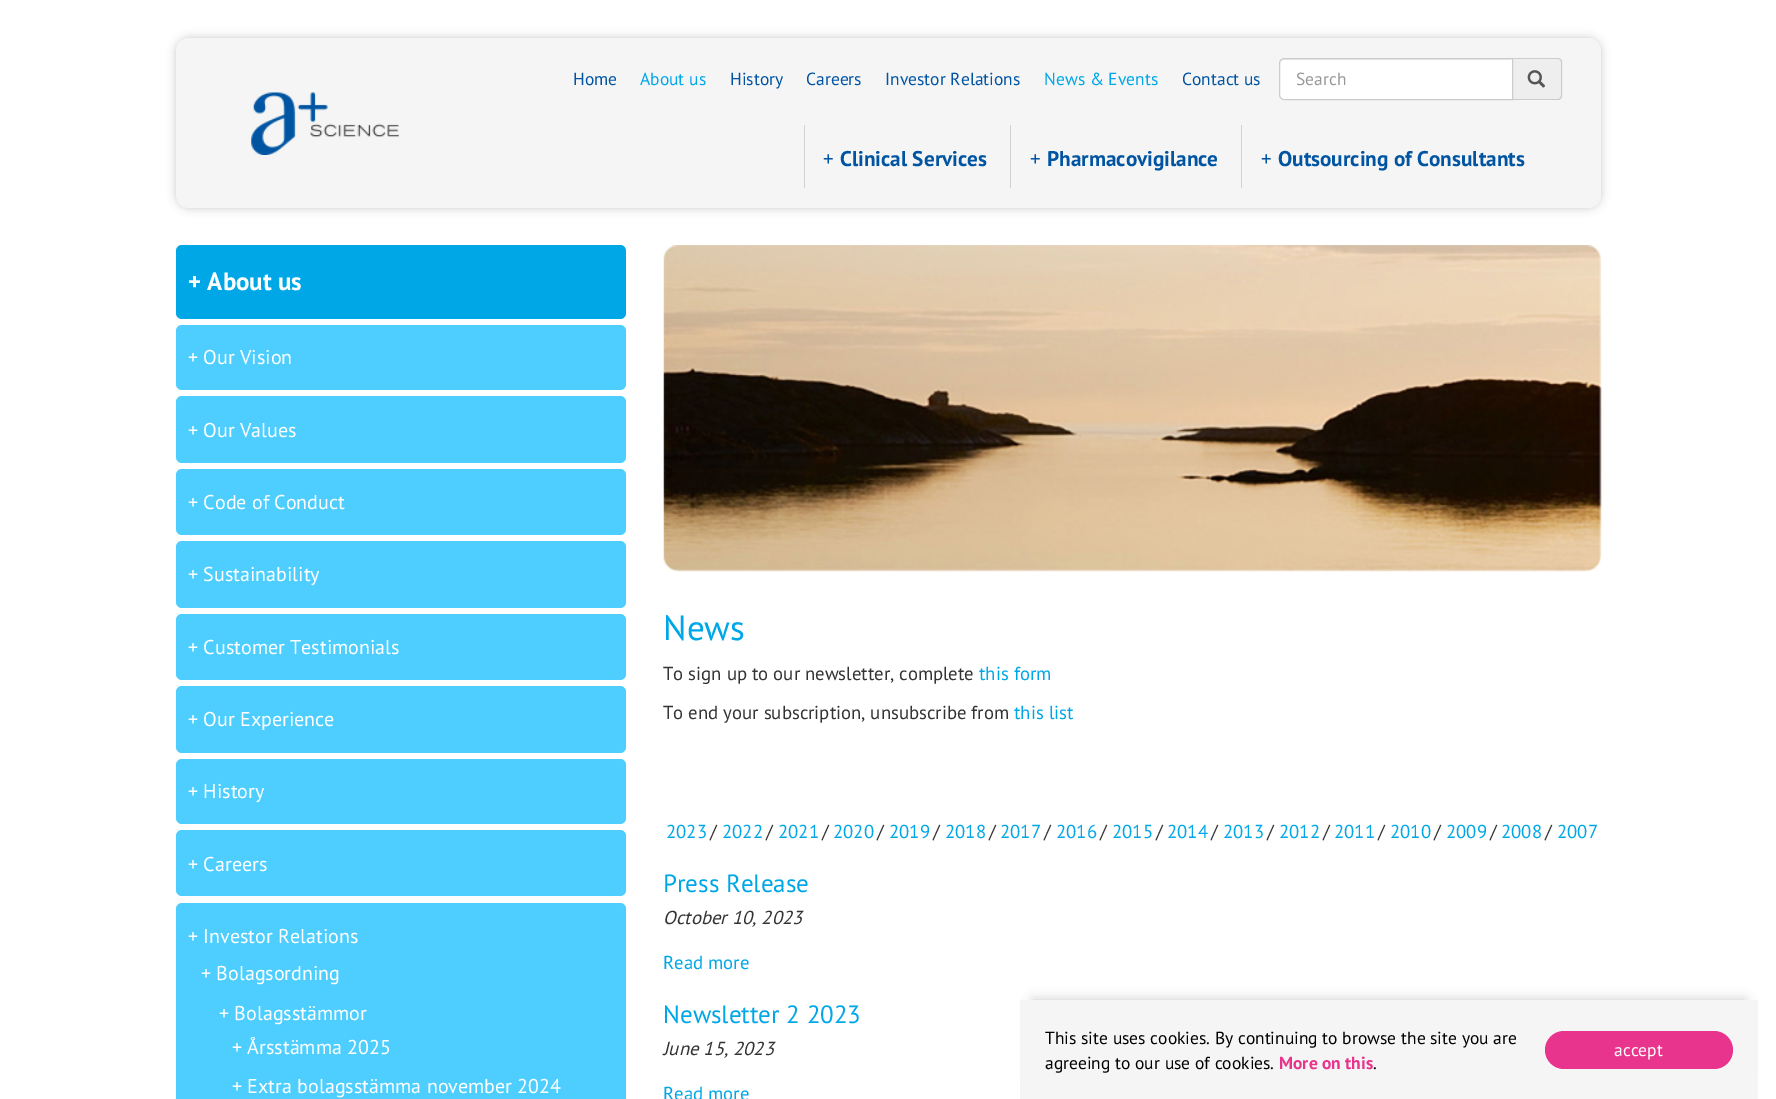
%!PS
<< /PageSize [1776 1099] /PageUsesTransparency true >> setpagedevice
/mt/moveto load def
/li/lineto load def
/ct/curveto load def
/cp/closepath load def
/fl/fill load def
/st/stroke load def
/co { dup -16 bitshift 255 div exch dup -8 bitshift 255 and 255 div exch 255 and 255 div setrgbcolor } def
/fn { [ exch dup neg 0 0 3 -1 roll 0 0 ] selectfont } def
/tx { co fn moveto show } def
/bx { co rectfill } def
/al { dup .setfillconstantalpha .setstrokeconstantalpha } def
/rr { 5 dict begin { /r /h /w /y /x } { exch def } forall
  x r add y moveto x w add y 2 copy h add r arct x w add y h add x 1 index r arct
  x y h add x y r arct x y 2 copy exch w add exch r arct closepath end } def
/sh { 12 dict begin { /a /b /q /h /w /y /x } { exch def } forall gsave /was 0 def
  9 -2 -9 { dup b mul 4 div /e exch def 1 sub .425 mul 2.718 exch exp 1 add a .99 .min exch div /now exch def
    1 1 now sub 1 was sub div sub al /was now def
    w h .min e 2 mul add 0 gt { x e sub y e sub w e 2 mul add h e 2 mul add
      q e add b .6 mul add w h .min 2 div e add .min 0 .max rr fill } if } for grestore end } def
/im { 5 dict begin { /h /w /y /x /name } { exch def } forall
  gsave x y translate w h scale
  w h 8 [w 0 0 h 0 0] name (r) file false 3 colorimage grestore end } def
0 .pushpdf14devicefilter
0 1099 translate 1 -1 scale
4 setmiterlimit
0 0 1776 1099 16#FFFFFF bx
16#000000 co
176 38 1425 170 13 4.5 .2 sh
16#F5F5F5 co
176 38 1425 170 13 rr fl
16#EEEEEE co
1513 58 mt 1558 58 li 1561 58 1563 60 1563 63 ct 1563 95 li 1563 98 1561 100 1558 100 ct 1513 100 li cp fl
16#CCCCCC co
1512 58 mt 1558 58 li 1560 58 1562 60 1562 62 ct 1562 95 li 1562 98 1560 100 1558 100 ct 1512 100 li cp 1512 59 mt 1558 59 li 1560 59 1561 60 1561 62 ct 1561 95 li 1561 97 1560 99 1558 99 ct 1512 99 li cp eofill
16#FFFFFF co
1284 58 mt 1513 58 li 1513 100 li 1284 100 li 1281 100 1279 98 1279 95 ct 1279 63 li 1279 60 1281 58 1284 58 ct cp fl
16#ECECEC co
1284 60 mt 1511 60 li 1511 59 li 1284 59 li 1281 59 1280 61 1280 64 ct 1280 62 1282 60 1284 60 ct cp fl
16#CCCCCC co
1284 58.5 mt 1512.5 58.5 li 1512.5 99.5 li 1284 99.5 li 1281.5 99.5 1279.5 97.5 1279.5 95 ct 1279.5 63 li 1279.5 60.5 1281.5 58.5 1284 58.5 ct cp st
(media/1.raw) 1527 70 19 18 im
(media/2.raw) 251 92 148 63 im
804 125 1 63 16#D1D1D1 bx
1010 125 1 63 16#D1D1D1 bx
1241 125 1 63 16#D1D1D1 bx
16#00A7E7 co
176 245 450 74 6 rr fl
16#4ECEFF co
176 325 450 65 6 rr fl
176 396 450 67 6 rr fl
176 469 450 66 6 rr fl
176 541 450 67 6 rr fl
176 614 450 66 6 rr fl
176 686 450 67 6 rr fl
176 759 450 65 6 rr fl
176 830 450 66 6 rr fl
176 903 450 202 6 rr fl
(media/3.raw) 663 245 939 327 im
16#000000 co
1033 1000 712 75 0 6 .2 sh
1020 1000 738 99 16#F5F5F5 bx
16#E8348C co
1545 1031 188 38 19 rr fl
(Home) 573 85 /PTSans-Regular 17.5 16#0054A2 tx
(About us) 640 85 /PTSans-Regular 17.5 16#00A7E7 tx
(History) 730 85 /PTSans-Regular 17.5 16#0054A2 tx
(Careers) 806 85 /PTSans-Regular 17.5 16#0054A2 tx
(Investor Relations) 885 85 /PTSans-Regular 17.5 16#0054A2 tx
(News & Events) 1044 85 /PTSans-Regular 17.5 16#00A7E7 tx
(Contact us) 1182 85 /PTSans-Regular 17.5 16#0054A2 tx
(Search) 1296 85 /PTSans-Regular 17.5 16#999999 tx
(+) 823 166 /PTSans-Regular 21.25 16#0054A2 tx
(Clinical Services) 840 166 /PTSans-Bold 21.25 16#0054A2 tx
(+) 1030 166 /PTSans-Regular 21.25 16#0054A2 tx
(Pharmacovigilance) 1047 166 /PTSans-Bold 21.25 16#0054A2 tx
(+) 1261 166 /PTSans-Regular 21.25 16#0054A2 tx
(Outsourcing of Consultants) 1278 166 /PTSans-Bold 21.25 16#0054A2 tx
(+ About us) 188 290 /PTSans-Bold 25 16#FFFFFF tx
(+ Our Vision) 188 364 /PTSans-Regular 20 16#FFFFFF tx
(+ Our Values) 188 437 /PTSans-Regular 20 16#FFFFFF tx
(+ Code of Conduct) 188 509 /PTSans-Regular 20 16#FFFFFF tx
(+ Sustainability) 188 581 /PTSans-Regular 20 16#FFFFFF tx
(+ Customer Testimonials) 188 654 /PTSans-Regular 20 16#FFFFFF tx
(+ Our Experience) 188 726 /PTSans-Regular 20 16#FFFFFF tx
(+ History) 188 798 /PTSans-Regular 20 16#FFFFFF tx
(+ Careers) 188 871 /PTSans-Regular 20 16#FFFFFF tx
(+ Investor Relations) 188 943 /PTSans-Regular 20 16#FFFFFF tx
(+ Bolagsordning) 201 980 /PTSans-Regular 20 16#FFFFFF tx
(+ Bolagsstämmor) 219 1020 /PTSans-Regular 20 16#FFFFFF tx
(+ Årsstämma 2025) 232 1054 /PTSans-Regular 20 16#FFFFFF tx
(+ Extra bolagsstämma november 2024) 232 1093 /PTSans-Regular 20 16#FFFFFF tx
(News) 663 640 /PTSans-Regular 35 16#00A7E7 tx
(To sign up to our newsletter, complete) 663 680 /PTSans-Regular 18.75 16#333333 tx
(this form) 979 680 /PTSans-Regular 18.75 16#00A7E7 tx
(To end your subscription, unsubscribe from) 663 719 /PTSans-Regular 18.75 16#333333 tx
(this list) 1014 719 /PTSans-Regular 18.75 16#00A7E7 tx
(2023) 666 838 /PTSans-Regular 18.75 16#00A7E7 tx
(/) 710 838 /PTSans-Regular 18.75 16#333333 tx
(2022) 722 838 /PTSans-Regular 18.75 16#00A7E7 tx
(/) 766 838 /PTSans-Regular 18.75 16#333333 tx
(2021) 778 838 /PTSans-Regular 18.75 16#00A7E7 tx
(/) 822 838 /PTSans-Regular 18.75 16#333333 tx
(2020) 833 838 /PTSans-Regular 18.75 16#00A7E7 tx
(/) 877 838 /PTSans-Regular 18.75 16#333333 tx
(2019) 889 838 /PTSans-Regular 18.75 16#00A7E7 tx
(/) 933 838 /PTSans-Regular 18.75 16#333333 tx
(2018) 945 838 /PTSans-Regular 18.75 16#00A7E7 tx
(/) 989 838 /PTSans-Regular 18.75 16#333333 tx
(2017) 1000 838 /PTSans-Regular 18.75 16#00A7E7 tx
(/) 1044 838 /PTSans-Regular 18.75 16#333333 tx
(2016) 1056 838 /PTSans-Regular 18.75 16#00A7E7 tx
(/) 1100 838 /PTSans-Regular 18.75 16#333333 tx
(2015) 1112 838 /PTSans-Regular 18.75 16#00A7E7 tx
(/) 1156 838 /PTSans-Regular 18.75 16#333333 tx
(2014) 1167 838 /PTSans-Regular 18.75 16#00A7E7 tx
(/) 1211 838 /PTSans-Regular 18.75 16#333333 tx
(2013) 1223 838 /PTSans-Regular 18.75 16#00A7E7 tx
(/) 1267 838 /PTSans-Regular 18.75 16#333333 tx
(2012) 1279 838 /PTSans-Regular 18.75 16#00A7E7 tx
(/) 1323 838 /PTSans-Regular 18.75 16#333333 tx
(2011) 1334 838 /PTSans-Regular 18.75 16#00A7E7 tx
(/) 1378 838 /PTSans-Regular 18.75 16#333333 tx
(2010) 1390 838 /PTSans-Regular 18.75 16#00A7E7 tx
(/) 1434 838 /PTSans-Regular 18.75 16#333333 tx
(2009) 1446 838 /PTSans-Regular 18.75 16#00A7E7 tx
(/) 1490 838 /PTSans-Regular 18.75 16#333333 tx
(2008) 1501 838 /PTSans-Regular 18.75 16#00A7E7 tx
(/) 1545 838 /PTSans-Regular 18.75 16#333333 tx
(2007) 1557 838 /PTSans-Regular 18.75 16#00A7E7 tx
(Press Release) 663 892 /PTSans-Regular 25 16#00A7E7 tx
(October 10, 2023) 663 924 /PTSans-Italic 18.75 16#333333 tx
(Read more) 663 969 /PTSans-Regular 18.75 16#00A7E7 tx
(Newsletter 2 2023) 663 1023 /PTSans-Regular 25 16#00A7E7 tx
(June 15, 2023) 663 1055 /PTSans-Italic 18.75 16#333333 tx
(Read more) 663 1100 /PTSans-Regular 18.75 16#00A7E7 tx
(This site uses cookies. By continuing to browse the site you are) 1045 1044 /PTSans-Regular 17.5 16#000000 tx
(agreeing to our use of cookies.) 1045 1069 /PTSans-Regular 17.5 16#000000 tx
(More on this) 1279 1069 /PTSans-Bold 17.5 16#E8348C tx
(.) 1373 1069 /PTSans-Regular 17.5 16#000000 tx
(accept) 1614 1056 /PTSans-Regular 17.5 16#FFFFFF tx
.poppdf14devicefilter showpage
